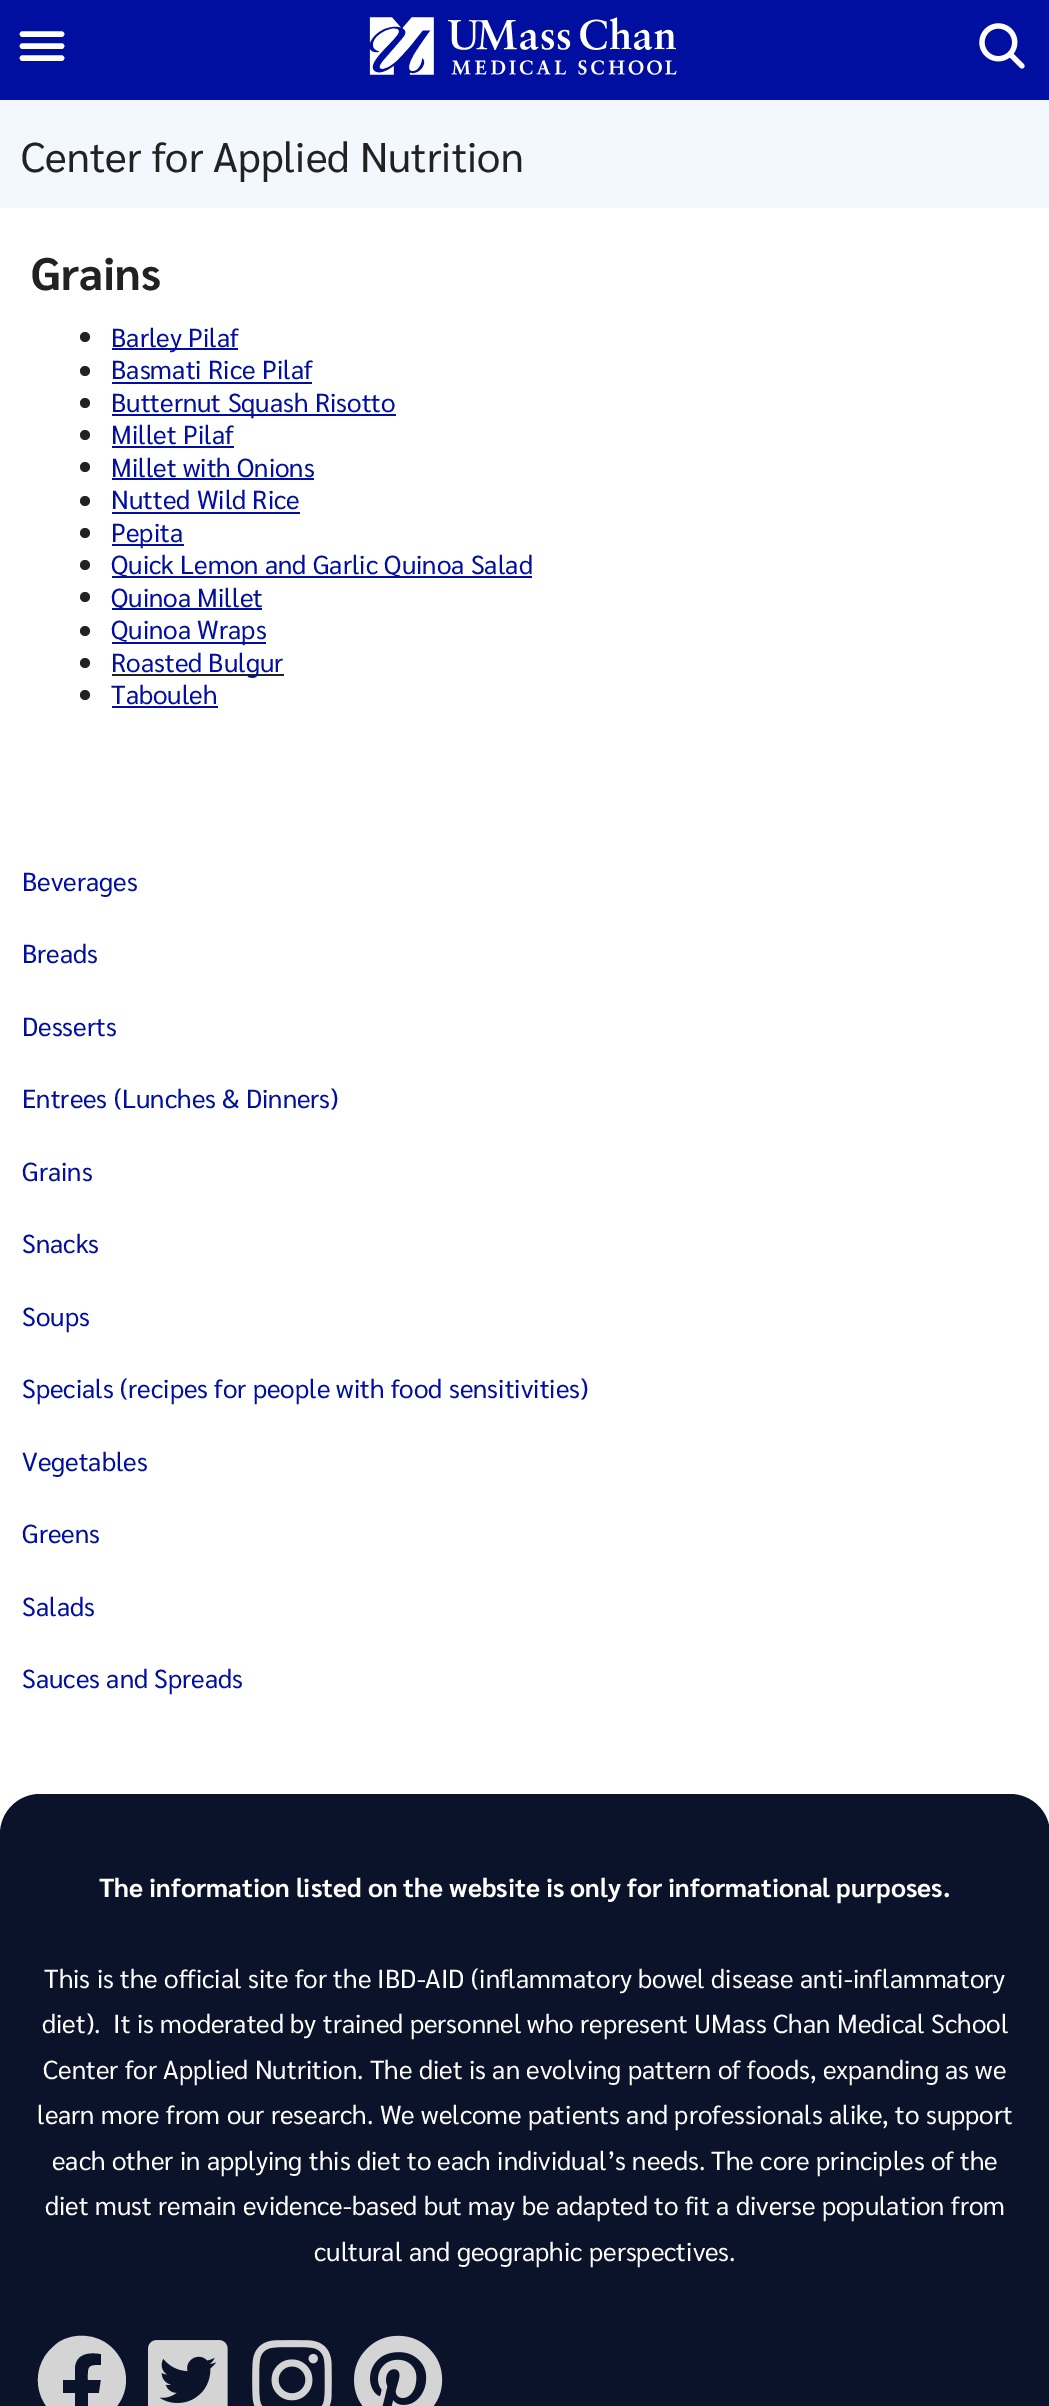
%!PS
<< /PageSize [1049 2406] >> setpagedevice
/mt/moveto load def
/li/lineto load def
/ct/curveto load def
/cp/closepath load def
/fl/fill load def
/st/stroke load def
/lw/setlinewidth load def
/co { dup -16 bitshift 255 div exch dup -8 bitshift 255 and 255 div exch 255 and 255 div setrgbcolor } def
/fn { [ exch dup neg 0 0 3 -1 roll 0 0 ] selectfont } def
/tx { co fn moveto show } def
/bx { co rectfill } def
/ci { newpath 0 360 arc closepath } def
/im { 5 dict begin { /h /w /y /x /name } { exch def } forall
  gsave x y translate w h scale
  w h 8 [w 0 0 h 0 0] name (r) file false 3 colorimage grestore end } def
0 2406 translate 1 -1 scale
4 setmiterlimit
0 0 1049 2406 16#FFFFFF bx
0 0 1049 100 16#000F9F bx
16#FFFFFF co
5.6 lw
1 setlinecap
22.5 34 mt 61.5 34 li 22.5 46 mt 61.5 46 li 22.5 58 mt 61.5 58 li st
(media/1.raw) 369 17 308 58 im
(media/2.raw) 979 23 46 46 im
0 100 1049 108 16#F2F8FD bx
16#222222 co
85 337 5 ci fl
112 348 126 2 16#000F9F bx
16#222222 co
85 371 5 ci fl
112 382 200 2 16#000F9F bx
16#222222 co
85 403 5 ci fl
112 414 284 2 16#000F9F bx
16#222222 co
85 435 5 ci fl
112 446 122 2 16#000F9F bx
16#222222 co
85 467 5 ci fl
112 478 202 2 16#000F9F bx
16#222222 co
85 501 5 ci fl
112 512 188 2 16#000F9F bx
16#222222 co
85 533 5 ci fl
112 544 72 2 16#000F9F bx
16#222222 co
85 565 5 ci fl
112 576 420 2 16#000F9F bx
16#222222 co
85 597 5 ci fl
112 608 150 2 16#000F9F bx
16#222222 co
85 631 5 ci fl
112 642 154 2 16#000F9F bx
16#222222 co
85 663 5 ci fl
112 674 172 2 16#222222 bx
85 695 5 ci fl
112 706 106 2 16#000F9F bx
16#0A1329 co
40 1794 mt 1010 1794 li 1032 1794 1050 1812 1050 1834 ct 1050 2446 li 0 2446 li 0 1834 li 0 1812 18 1794 40 1794 ct cp fl
16#D4D4D4 co
126 2380 mt 126 2401 110 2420 88 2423 ct 88 2393 li 99 2393 li 101 2380 li 88 2380 li 88 2367 87 2365 101 2365 ct 101 2354 li 90 2352 77 2353 75 2366 ct 75 2380 li 63 2380 li 63 2393 li 75 2393 li 75 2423 li 37 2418 25 2370 54 2346 ct 60 2340 68 2337 77 2336 ct 87 2335 97 2337 106 2343 ct 118 2351 126 2365 126 2380 ct cp fl
(media/3.raw) 148 2340 80 66 im
(media/4.raw) 252 2340 80 66 im
(media/5.raw) 354 2335 89 71 im
(Center for Applied Nutrition) 21 172 /Sarabun-Regular 41.6 16#222222 tx
(Grains) 31 290 /Sarabun-Bold 45.5 16#222222 tx
(Barley Pilaf) 111 347 /Sarabun-Regular 26 16#000F9F tx
(Basmati Rice Pilaf) 111 379 /Sarabun-Regular 26 16#000F9F tx
(Butternut Squash Risotto) 111 412 /Sarabun-Regular 26 16#000F9F tx
(Millet Pilaf) 111 444 /Sarabun-Regular 26 16#000F9F tx
(Millet with Onions) 111 477 /Sarabun-Regular 26 16#000F9F tx
(Nutted Wild Rice) 111 509 /Sarabun-Regular 26 16#000F9F tx
(Pepita) 111 542 /Sarabun-Regular 26 16#000F9F tx
(Quick Lemon and Garlic Quinoa Salad) 111 574 /Sarabun-Regular 26 16#000F9F tx
(Quinoa Millet) 111 607 /Sarabun-Regular 26 16#000F9F tx
(Quinoa Wraps) 111 639 /Sarabun-Regular 26 16#000F9F tx
(Roasted Bulgur) 111 672 /Sarabun-Regular 26 16#000F9F tx
(Tabouleh) 111 704 /Sarabun-Regular 26 16#000F9F tx
(Beverages) 22 891 /Sarabun-Regular 26 16#000F9F tx
(Breads) 22 963 /Sarabun-Regular 26 16#000F9F tx
(Desserts) 22 1036 /Sarabun-Regular 26 16#000F9F tx
(Entrees \(Lunches & Dinners\)) 22 1108 /Sarabun-Regular 26 16#000F9F tx
(Grains) 22 1181 /Sarabun-Regular 26 16#000F9F tx
(Snacks) 22 1253 /Sarabun-Regular 26 16#000F9F tx
(Soups) 22 1326 /Sarabun-Regular 26 16#000F9F tx
(Specials \(recipes for people with food sensitivities\)) 22 1398 /Sarabun-Regular 26 16#000F9F tx
(Vegetables) 22 1471 /Sarabun-Regular 26 16#000F9F tx
(Greens) 22 1543 /Sarabun-Regular 26 16#000F9F tx
(Salads) 22 1616 /Sarabun-Regular 26 16#000F9F tx
(Sauces and Spreads) 22 1688 /Sarabun-Regular 26 16#000F9F tx
(The information listed on the website is only for informational purposes.) 99 1897 /Sarabun-Bold 26 16#FFFFFF tx
(This is the official site for the IBD-AID \(inflammatory bowel disease anti-inflammatory) 44 1988 /Sarabun-Regular 26 16#FFFFFF tx
(diet\).  It is moderated by trained personnel who represent UMass Chan Medical School) 42 2033 /Sarabun-Regular 26 16#FFFFFF tx
(Center for Applied Nutrition. The diet is an evolving pattern of foods, expanding as we) 43 2079 /Sarabun-Regular 26 16#FFFFFF tx
(learn more from our research. We welcome patients and professionals alike, to support) 37 2124 /Sarabun-Regular 26 16#FFFFFF tx
(each other in applying this diet to each individual’s needs. The core principles of the) 52 2170 /Sarabun-Regular 26 16#FFFFFF tx
(diet must remain evidence-based but may be adapted to fit a diverse population from) 45 2215 /Sarabun-Regular 26 16#FFFFFF tx
(cultural and geographic perspectives.) 314 2261 /Sarabun-Regular 26 16#FFFFFF tx
showpage
